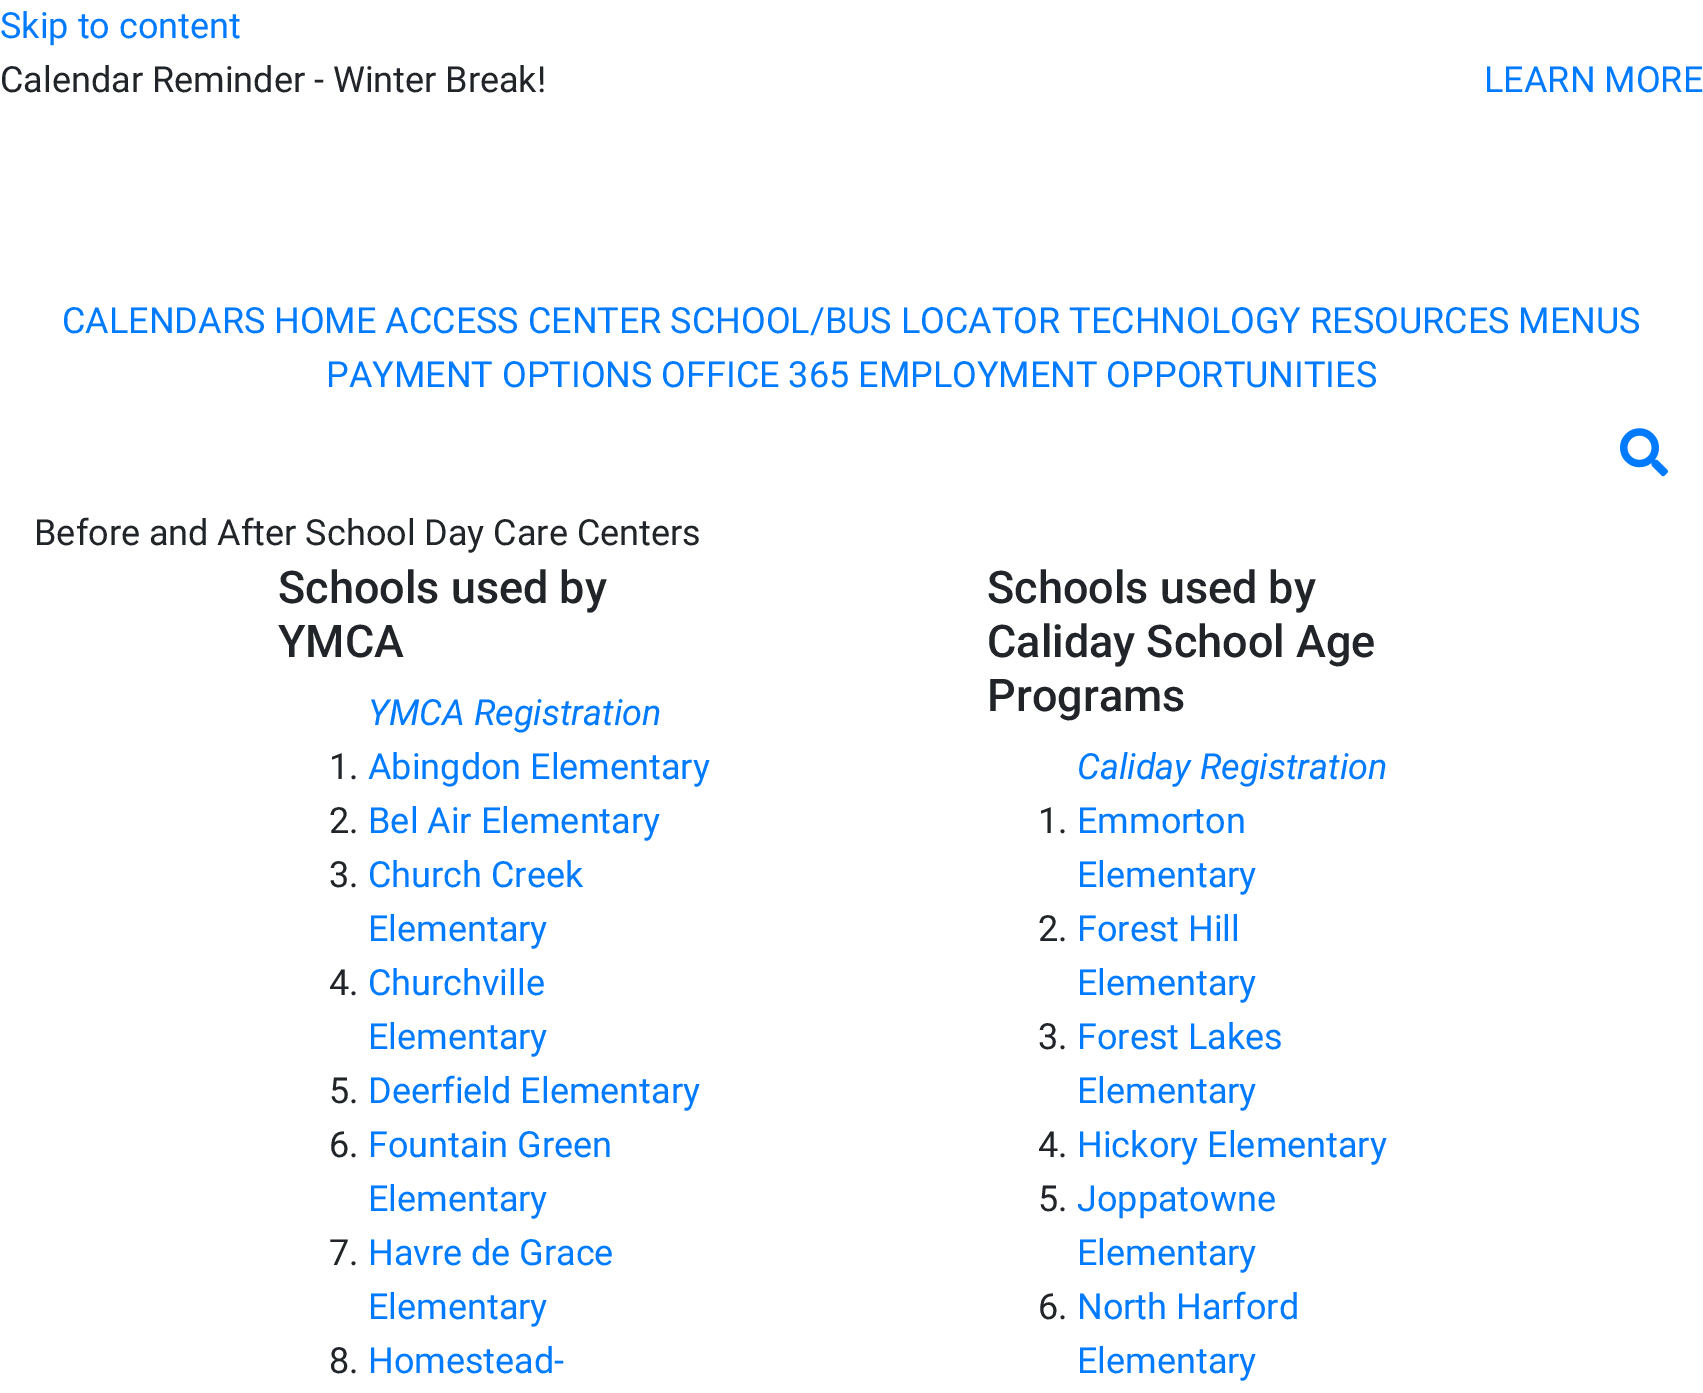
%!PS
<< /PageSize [1703 1393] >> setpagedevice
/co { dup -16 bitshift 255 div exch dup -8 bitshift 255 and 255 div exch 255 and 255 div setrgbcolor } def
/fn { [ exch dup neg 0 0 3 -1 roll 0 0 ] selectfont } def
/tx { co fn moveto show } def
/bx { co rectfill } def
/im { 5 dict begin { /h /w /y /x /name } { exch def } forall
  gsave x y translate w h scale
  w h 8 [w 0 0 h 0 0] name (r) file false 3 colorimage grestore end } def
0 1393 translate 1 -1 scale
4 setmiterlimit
0 0 1703 1393 16#FFFFFF bx
(media/1.raw) 1620 428 48 49 im
(Skip to content) 0 38 /Roboto-Regular 36 16#007BFF tx
(Calendar Reminder - Winter Break!) 0 92 /Roboto-Regular 36 16#212529 tx
(LEARN MORE) 1484 92 /Roboto-Regular 36 16#007BFF tx
(CALENDARS HOME ACCESS CENTER SCHOOL/BUS LOCATOR TECHNOLOGY RESOURCES MENUS) 62 333 /Roboto-Regular 36 16#007BFF tx
(PAYMENT OPTIONS OFFICE 365 EMPLOYMENT OPPORTUNITIES) 326 387 /Roboto-Regular 36 16#007BFF tx
(Before and After School Day Care Centers) 34 545 /Roboto-Regular 36 16#212529 tx
(Schools used by) 278 603 /Roboto-Medium 45 16#212529 tx
(YMCA) 278 657 /Roboto-Medium 45 16#212529 tx
(YMCA Registration) 368 725 /Roboto-Italic 36 16#007BFF tx
(1.) 329 779 /Roboto-Regular 36 16#212529 tx
(Abingdon Elementary) 368 779 /Roboto-Regular 36 16#007BFF tx
(2.) 329 833 /Roboto-Regular 36 16#212529 tx
(Bel Air Elementary) 368 833 /Roboto-Regular 36 16#007BFF tx
(3.) 329 887 /Roboto-Regular 36 16#212529 tx
(Church Creek) 368 887 /Roboto-Regular 36 16#007BFF tx
(Elementary) 368 941 /Roboto-Regular 36 16#007BFF tx
(4.) 329 995 /Roboto-Regular 36 16#212529 tx
(Churchville) 368 995 /Roboto-Regular 36 16#007BFF tx
(Elementary) 368 1049 /Roboto-Regular 36 16#007BFF tx
(5.) 329 1103 /Roboto-Regular 36 16#212529 tx
(Deerfield Elementary) 368 1103 /Roboto-Regular 36 16#007BFF tx
(6.) 329 1157 /Roboto-Regular 36 16#212529 tx
(Fountain Green) 368 1157 /Roboto-Regular 36 16#007BFF tx
(Elementary) 368 1211 /Roboto-Regular 36 16#007BFF tx
(7.) 329 1265 /Roboto-Regular 36 16#212529 tx
(Havre de Grace) 368 1265 /Roboto-Regular 36 16#007BFF tx
(Elementary) 368 1319 /Roboto-Regular 36 16#007BFF tx
(8.) 329 1373 /Roboto-Regular 36 16#212529 tx
(Homestead-) 368 1373 /Roboto-Regular 36 16#007BFF tx
(Schools used by) 987 603 /Roboto-Medium 45 16#212529 tx
(Caliday School Age) 987 657 /Roboto-Medium 45 16#212529 tx
(Programs) 987 711 /Roboto-Medium 45 16#212529 tx
(Caliday Registration) 1077 779 /Roboto-Italic 36 16#007BFF tx
(1.) 1038 833 /Roboto-Regular 36 16#212529 tx
(Emmorton) 1077 833 /Roboto-Regular 36 16#007BFF tx
(Elementary) 1077 887 /Roboto-Regular 36 16#007BFF tx
(2.) 1038 941 /Roboto-Regular 36 16#212529 tx
(Forest Hill) 1077 941 /Roboto-Regular 36 16#007BFF tx
(Elementary) 1077 995 /Roboto-Regular 36 16#007BFF tx
(3.) 1038 1049 /Roboto-Regular 36 16#212529 tx
(Forest Lakes) 1077 1049 /Roboto-Regular 36 16#007BFF tx
(Elementary) 1077 1103 /Roboto-Regular 36 16#007BFF tx
(4.) 1038 1157 /Roboto-Regular 36 16#212529 tx
(Hickory Elementary) 1077 1157 /Roboto-Regular 36 16#007BFF tx
(5.) 1038 1211 /Roboto-Regular 36 16#212529 tx
(Joppatowne) 1077 1211 /Roboto-Regular 36 16#007BFF tx
(Elementary) 1077 1265 /Roboto-Regular 36 16#007BFF tx
(6.) 1038 1319 /Roboto-Regular 36 16#212529 tx
(North Harford) 1077 1319 /Roboto-Regular 36 16#007BFF tx
(Elementary) 1077 1373 /Roboto-Regular 36 16#007BFF tx
showpage
